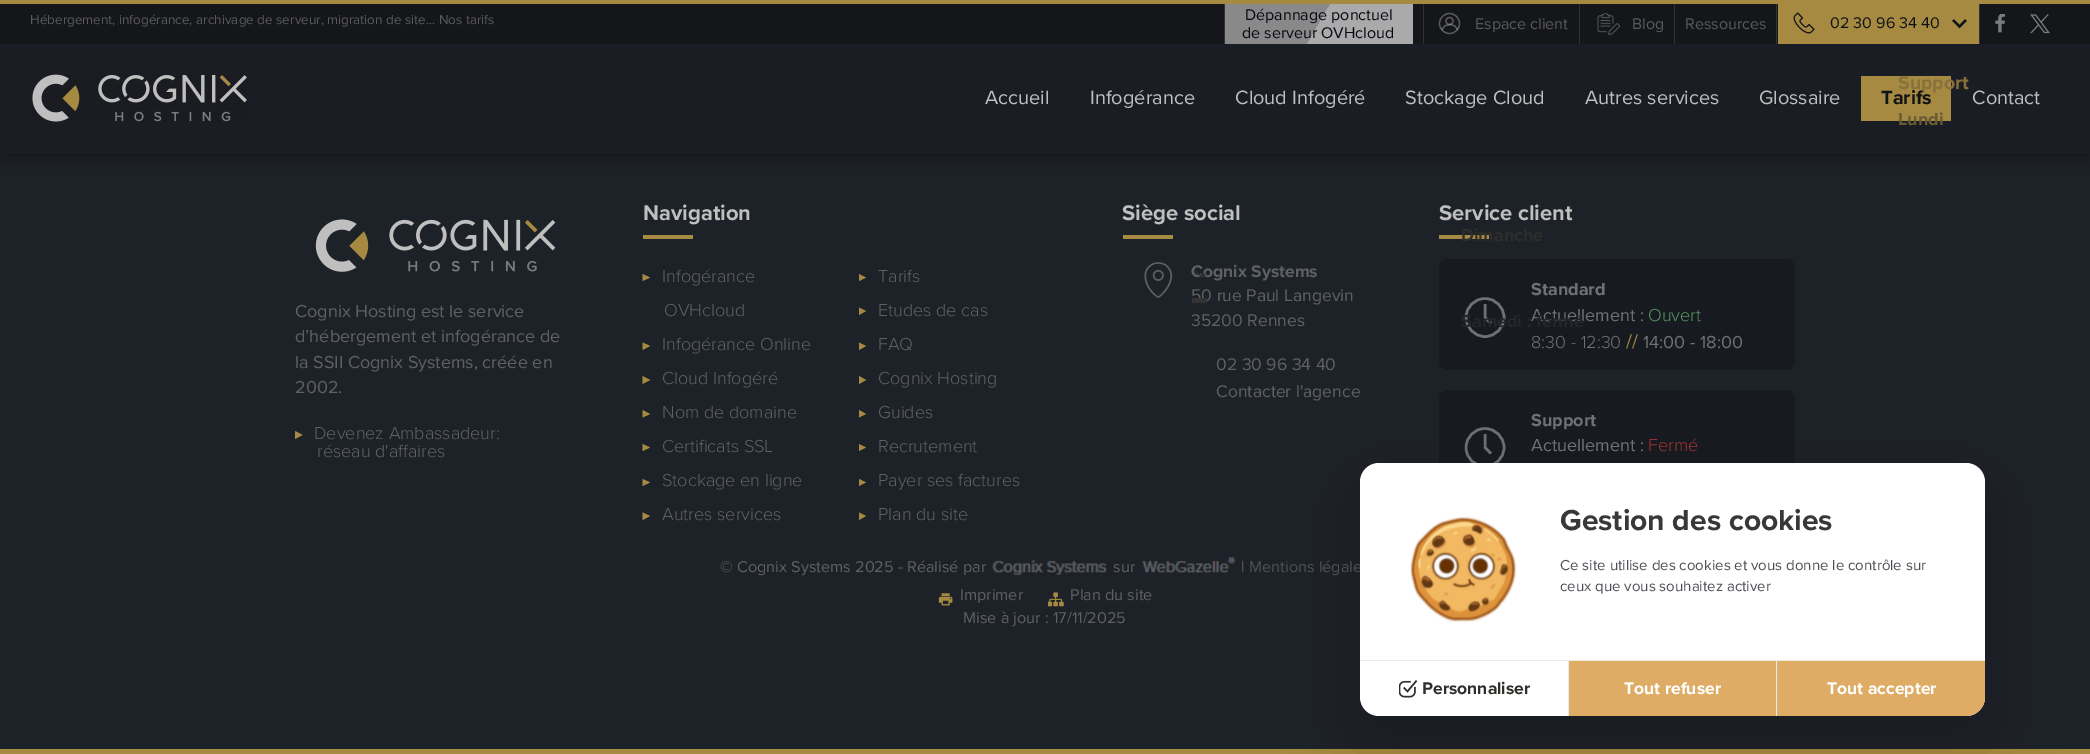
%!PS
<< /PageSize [2090 754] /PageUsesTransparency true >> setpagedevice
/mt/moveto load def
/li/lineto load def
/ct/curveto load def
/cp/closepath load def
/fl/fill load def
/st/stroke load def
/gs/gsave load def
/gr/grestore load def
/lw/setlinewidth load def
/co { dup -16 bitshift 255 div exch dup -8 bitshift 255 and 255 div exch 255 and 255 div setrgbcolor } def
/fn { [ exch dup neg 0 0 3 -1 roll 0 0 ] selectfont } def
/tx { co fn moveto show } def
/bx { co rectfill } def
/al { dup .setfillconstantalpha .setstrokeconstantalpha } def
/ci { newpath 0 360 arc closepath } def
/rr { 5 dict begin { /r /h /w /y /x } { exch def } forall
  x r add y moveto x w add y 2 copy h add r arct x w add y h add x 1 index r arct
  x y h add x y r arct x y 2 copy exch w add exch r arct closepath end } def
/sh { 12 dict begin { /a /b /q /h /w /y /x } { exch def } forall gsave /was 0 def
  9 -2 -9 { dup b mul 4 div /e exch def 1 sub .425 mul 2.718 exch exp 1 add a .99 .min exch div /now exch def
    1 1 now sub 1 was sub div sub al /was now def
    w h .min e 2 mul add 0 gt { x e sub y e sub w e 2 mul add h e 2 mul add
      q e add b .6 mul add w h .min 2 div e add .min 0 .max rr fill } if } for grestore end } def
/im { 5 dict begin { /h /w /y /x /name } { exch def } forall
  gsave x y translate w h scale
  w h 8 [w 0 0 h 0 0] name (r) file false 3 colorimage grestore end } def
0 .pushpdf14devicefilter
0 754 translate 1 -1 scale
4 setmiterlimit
0 0 2090 754 16#1D2128 bx
16#000000 co
0 0 2090 154 0 10 .4 sh
0 44 2090 110 16#1A1D23 bx
0 4 2090 40 16#14161A bx
0 0 2090 4 16#A78A41 bx
1224 4 1 40 16#2F3135 bx
gs 1225 4 mt 1413 4 li 1413 44 li 1225 44 li cp clip newpath
<< /ShadingType 2 /ColorSpace /DeviceRGB /Coords [1468 110 1169 -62] /Extend [true true] /Function << /FunctionType 3 /Domain [0 1] /Functions [<< /FunctionType 2 /Domain [0 1] /C0 [.416 .42 .427] /C1 [.416 .42 .427] /N 1 >> << /FunctionType 2 /Domain [0 1] /C0 [.337 .345 .353] /C1 [.337 .345 .353] /N 1 >>] /Bounds [.5] /Encode [0 1 0 1] >> >> shfill gr
0.5 al
gs 1225 4 mt 1413 4 li 1413 44 li 1225 44 li cp clip newpath
<< /ShadingType 2 /ColorSpace /DeviceRGB /Coords [1468 110 1169 -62] /Extend [true true] /Function << /FunctionType 3 /Domain [0 1] /Functions [<< /FunctionType 2 /Domain [0 1] /C0 [.749 .749 .749] /C1 [.749 .749 .749] /N 1 >> << /FunctionType 2 /Domain [0 1] /C0 [.6 .6 .6] /C1 [.6 .6 .6] /N 1 >>] /Bounds [.5] /Encode [0 1 0 1] >> >> shfill gr
gs 1225 4 mt 1413 4 li 1413 44 li 1225 44 li cp clip newpath
<< /ShadingType 2 /ColorSpace /DeviceRGB /Coords [1468 110 1169 -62] /Extend [true true] /Function << /FunctionType 3 /Domain [0 1] /Functions [<< /FunctionType 2 /Domain [0 1] /C0 [.749 .749 .749] /C1 [.749 .749 .749] /N 1 >> << /FunctionType 2 /Domain [0 1] /C0 [.6 .6 .6] /C1 [.6 .6 .6] /N 1 >>] /Bounds [.5] /Encode [0 1 0 1] >> >> shfill gr
1 al
1423 4 1 40 16#2F3135 bx
16#59595C co
1.3 lw
1449.5 23.5 10 ci st
1449.5 21 3.5 ci st
0.4 al
16#BFBFBF co
1457.5 30 mt 1455.5 22.5 1444 22.5 1442 30 ct st
1 al
1579 4 1 40 16#2F3135 bx
(media/1.raw) 1597 13 23 22 im
1674 4 1 40 16#2F3135 bx
1776 4 1 40 16#2F3135 bx
1778 4 201 40 16#A78A41 bx
(media/2.raw) 1793 12 22 22 im
16#111417 co
2.4 lw
1966 20 mt 1959.5 26.5 li 1953 20 li st
1979 4 1 40 16#2F3135 bx
(media/3.raw) 1995 14 10 19 im
(media/4.raw) 2030 14 20 20 im
(media/5.raw) 32 74 215 48 im
1861 76 90 45 16#A78A41 bx
(media/6.raw) 315 219 241 53 im
295 439 mt 295 431 li 302.5 435 li cp fl
643 235 50 4 16#A78A41 bx
642.5 281 mt 642.5 274 li 650 277.5 li cp fl
859 281 mt 859 274 li 866 277.5 li cp 859 315 mt 859 307.5 li 866 311 li cp fl
642.5 350 mt 642.5 342.5 li 650 346 li cp 642.5 384 mt 642.5 376 li 650 380 li cp fl
859 350 mt 859 342.5 li 866 346 li cp 859 384 mt 859 376 li 866 380 li cp fl
642.5 417.5 mt 642.5 410 li 650 414 li cp 642.5 451 mt 642.5 444 li 650 447.5 li cp fl
859 417.5 mt 859 410 li 866 414 li cp 859 451 mt 859 444 li 866 447.5 li cp fl
642.5 486 mt 642.5 479 li 650 482.5 li cp 642.5 520 mt 642.5 512.5 li 650 516 li cp fl
859 486 mt 859 479 li 866 482.5 li cp 859 520 mt 859 512.5 li 866 516 li cp fl
1123 235 50 4 16#A78A41 bx
(media/7.raw) 1144 262 29 36 im
1439 235 50 4 16#A78A41 bx
16#171A20 co
1439 259 356 111 9 rr fl
16#6E7277 co
2.5 lw
1485 317.5 19 ci st
1485 304 mt 1485 317.5 li 1491 323.5 li st
16#171A20 co
1439 390 356 111 9 rr fl
16#6E7277 co
1485 447.5 19 ci st
1485 434 mt 1485 447.5 li 1491 453.5 li st
0 749 2090 5 16#A78A41 bx
(media/9.raw) 992 559 115 16 im
(media/10.raw) 1141 557 95 16 im
(media/11.raw) 938 593 15 13 im
(media/12.raw) 1048 592 16 15 im
16#000000 co
1360 488 625 253 19 37.5 .2 sh
(Hébergement, infogérance, archivage de serveur, migration de site... Nos tarifs) 30 24 /ProximaNova-Regular 13.5 16#59595C tx
(Dépannage ponctuel) 1245 20 /ProximaNova-Regular 16 16#050A11 tx
(de serveur OVHcloud) 1242 38 /ProximaNova-Regular 16 16#050A11 tx
(Espace client) 1475 29 /ProximaNova-Regular 16 16#59595C tx
(Blog) 1632 29 /ProximaNova-Regular 16 16#59595C tx
(Ressources) 1685 29 /ProximaNova-Regular 16 16#59595C tx
(02 30 96 34 40) 1830 28 /ProximaNova-Regular 16 16#111417 tx
(Support) 1898 89 /ProximaNova-Bold 19.5 16#87713B tx
(Lundi) 1898 125 /ProximaNova-Bold 18 16#685A34 tx
(Accueil) 985 104 /ProximaNova-Regular 20 16#BFBFBF tx
(Infogérance) 1090 104 /ProximaNova-Regular 20 16#BFBFBF tx
(Cloud Infogéré) 1235 104 /ProximaNova-Regular 20 16#BFBFBF tx
(Stockage Cloud) 1405 104 /ProximaNova-Regular 20 16#BFBFBF tx
(Autres services) 1585 104 /ProximaNova-Regular 20 16#BFBFBF tx
(Glossaire) 1759 104 /ProximaNova-Regular 20 16#BFBFBF tx
(Tarifs) 1881 104 /ProximaNova-Bold 20 16#111417 tx
(Contact) 1972 104 /ProximaNova-Regular 20 16#BFBFBF tx
(Cognix Hosting est le service) 295 317 /ProximaNova-Regular 18 16#5E6065 tx
(d’hébergement et infogérance de) 295 342 /ProximaNova-Regular 18 16#5E6065 tx
(la SSII Cognix Systems, créée en) 295 368 /ProximaNova-Regular 18 16#5E6065 tx
(2002.) 295 393 /ProximaNova-Regular 18 16#5E6065 tx
(Devenez Ambassadeur:) 314 439 /ProximaNova-Light 18 16#5E6065 tx
(réseau d'affaires) 317 457 /ProximaNova-Light 18 16#5E6065 tx
(Navigation) 643 220 /ProximaNova-Bold 22 16#BFBFBF tx
(Infogérance) 662 282 /ProximaNova-Light 18 16#5E6065 tx
(OVHcloud) 664 316 /ProximaNova-Light 18 16#5E6065 tx
(Tarifs) 878 282 /ProximaNova-Light 18 16#5E6065 tx
(Etudes de cas) 878 316 /ProximaNova-Light 18 16#5E6065 tx
(Infogérance Online) 662 350 /ProximaNova-Light 18 16#5E6065 tx
(FAQ) 878 350 /ProximaNova-Light 18 16#5E6065 tx
(Cloud Infogéré) 662 384 /ProximaNova-Light 18 16#5E6065 tx
(Cognix Hosting) 878 384 /ProximaNova-Light 18 16#5E6065 tx
(Nom de domaine) 662 418 /ProximaNova-Light 18 16#5E6065 tx
(Guides) 878 418 /ProximaNova-Light 18 16#5E6065 tx
(Certificats SSL) 662 452 /ProximaNova-Light 18 16#5E6065 tx
(Recrutement) 878 452 /ProximaNova-Light 18 16#5E6065 tx
(Stockage en ligne) 662 486 /ProximaNova-Light 18 16#5E6065 tx
(Payer ses factures) 878 486 /ProximaNova-Light 18 16#5E6065 tx
(Autres services) 662 520 /ProximaNova-Light 18 16#5E6065 tx
(Plan du site) 878 520 /ProximaNova-Light 18 16#5E6065 tx
(Siège social) 1122 220 /ProximaNova-Bold 22 16#BFBFBF tx
(Cognix Systems) 1191 277 /ProximaNova-Bold 17.5 16#5E6065 tx
(50 rue Paul Langevin) 1191 301 /ProximaNova-Regular 17.5 16#5E6065 tx
(35200 Rennes) 1191 326 /ProximaNova-Regular 17.5 16#5E6065 tx
(media/8.raw) 1194 271 12 7 im
(02 30 96 34 40) 1216 370 /ProximaNova-Regular 17.5 16#5E6065 tx
1192 298 15 5 16#333333 bx
(Contacter l'agence) 1216 397 /ProximaNova-Regular 17.5 16#5E6065 tx
(Service client) 1439 220 /ProximaNova-Bold 22 16#BFBFBF tx
(Dimanche) 1461 241 /ProximaNova-Bold 18 16#2E2E2B tx
(Standard) 1531 295 /ProximaNova-Bold 18 16#6E7277 tx
(Actuellement :) 1531 321 /ProximaNova-Regular 18 16#6E7277 tx
(Ouvert) 1648 321 /ProximaNova-Light 18 16#59955F tx
(8:30 - 12:30) 1531 348 /ProximaNova-Light 18 16#6E7277 tx
(//) 1626 348 /ProximaNova-Regular 20 16#A78A41 tx
(14:00 - 18:00) 1643 348 /ProximaNova-Regular 18 16#6E7277 tx
(Samedi) 1461 327 /ProximaNova-Bold 18 16#23262C tx
(: fermé) 1527 327 /ProximaNova-Bold 18 16#23262C tx
(Support) 1531 426 /ProximaNova-Bold 18 16#6E7277 tx
(Actuellement :) 1531 451 /ProximaNova-Regular 18 16#6E7277 tx
(Fermé) 1648 451 /ProximaNova-Light 18 16#9E3232 tx
(© Cognix Systems 2025 - Réalisé par) 720 572 /ProximaNova-Regular 16.25 16#5E6065 tx
(sur) 1113 572 /ProximaNova-Regular 16.25 16#5E6065 tx
(|) 1241 572 /ProximaNova-Regular 16.25 16#5E6065 tx
(Mentions légale) 1249 572 /ProximaNova-Regular 16.25 16#4E5056 tx
(Imprimer) 960 600 /ProximaNova-Regular 16.25 16#5E6065 tx
(Plan du site) 1070 600 /ProximaNova-Regular 16.25 16#5E6065 tx
(Mise à jour : 17/11/2025) 963 623 /ProximaNova-Regular 16.25 16#5E6065 tx
16#FFFFFF co
1360 463 625 253 19 rr fl
(Gestion des cookies) 1560 530 /ProximaNova-Bold 30 16#383838 tx
(media/13.raw) 1410 516 107 106 im
(Ce site utilise des cookies et vous donne le contrôle sur) 1560 570 /ProximaNova-Regular 15 16#4E5056 tx
(ceux que vous souhaitez activer) 1560 591 /ProximaNova-Regular 15 16#4E5056 tx
(media/14.raw) 1399 680 19 18 im
(Personnaliser) 1422 694 /ProximaNova-Bold 17.5 16#2E2E2B tx
1569 661 209 55 16#DEAC64 bx
(Tout refuser) 1624 694 /ProximaNova-Bold 17.5 16#FFFFFF tx
16#DEAC64 co
1778 660 mt 1985 660 li 1985 697 li 1985 707.5 1976.5 716 1966 716 ct 1778 716 li cp fl
1360 660 625 1 16#EAEAEA bx
1568 660 1 56 16#EAEAEA bx
1776 660 1 56 16#EAEAEA bx
(Tout accepter) 1827 694 /ProximaNova-Bold 17.5 16#FFFFFF tx
.poppdf14devicefilter showpage
